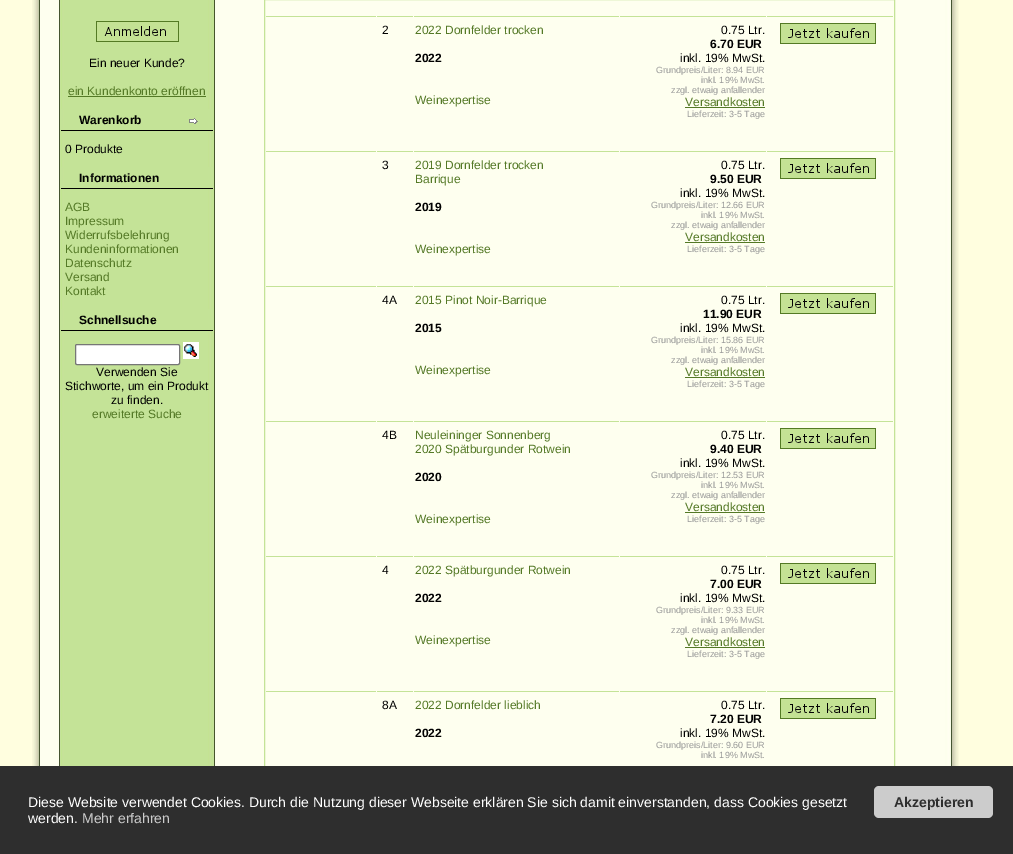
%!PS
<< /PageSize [1013 854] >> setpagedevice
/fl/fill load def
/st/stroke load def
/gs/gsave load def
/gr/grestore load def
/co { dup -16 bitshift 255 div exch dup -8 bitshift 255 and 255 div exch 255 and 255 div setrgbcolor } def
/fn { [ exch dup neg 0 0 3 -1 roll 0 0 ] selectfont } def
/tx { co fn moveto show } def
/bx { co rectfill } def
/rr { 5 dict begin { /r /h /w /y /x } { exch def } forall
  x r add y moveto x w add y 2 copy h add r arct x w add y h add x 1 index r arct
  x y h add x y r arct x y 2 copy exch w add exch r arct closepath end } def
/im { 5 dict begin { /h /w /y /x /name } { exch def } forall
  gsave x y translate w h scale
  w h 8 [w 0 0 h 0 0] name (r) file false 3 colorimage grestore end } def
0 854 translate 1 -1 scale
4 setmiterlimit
0 0 1013 854 16#FFFEDF bx
(media/1.raw) 32 0 927 766 im
213 0 1 110 16#C4E397 bx
60 109 154 1 16#C4E397 bx
60 0 1 110 16#C4E397 bx
(media/2.raw) 96 21 83 21 im
68 96 138 1 16#547926 bx
60 110 2 20 16#C4E397 bx
208 110 6 20 16#C4E397 bx
(media/3.raw) 189 118 9 6 im
60 130 154 1 16#000000 bx
213 130 1 38 16#C4E397 bx
60 167 154 1 16#C4E397 bx
60 130 1 38 16#C4E397 bx
60 168 2 20 16#C4E397 bx
208 168 6 20 16#C4E397 bx
60 188 154 1 16#000000 bx
213 188 1 122 16#C4E397 bx
60 309 154 1 16#C4E397 bx
60 188 1 122 16#C4E397 bx
60 310 2 20 16#C4E397 bx
208 310 6 20 16#C4E397 bx
60 330 154 1 16#000000 bx
213 330 1 103 16#C4E397 bx
60 432 154 1 16#C4E397 bx
60 330 1 103 16#C4E397 bx
16#FFFFFF co
75.5 344.5 104 20 1.5 rr gs fl gr
16#767676 co
st
(media/4.raw) 183 342 16 17 im
16#C4E397 co
264.5 -.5 630 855 rectstroke
266 16 110 1 16#C4E397 bx
377 16 36 1 16#C4E397 bx
414 16 205 1 16#C4E397 bx
620 16 146 1 16#C4E397 bx
767 16 126 1 16#C4E397 bx
377 151 36 1 16#C4E397 bx
414 151 205 1 16#C4E397 bx
620 151 146 1 16#C4E397 bx
685 107 80 1 16#547926 bx
767 151 126 1 16#C4E397 bx
(media/5.raw) 780 23 96 21 im
266 151 110 1 16#C4E397 bx
377 286 36 1 16#C4E397 bx
414 286 205 1 16#C4E397 bx
620 286 146 1 16#C4E397 bx
685 242 80 1 16#547926 bx
767 286 126 1 16#C4E397 bx
(media/5.raw) 780 158 96 21 im
266 286 110 1 16#C4E397 bx
377 421 36 1 16#C4E397 bx
414 421 205 1 16#C4E397 bx
620 421 146 1 16#C4E397 bx
685 377 80 1 16#547926 bx
767 421 126 1 16#C4E397 bx
(media/5.raw) 780 293 96 21 im
266 421 110 1 16#C4E397 bx
377 556 36 1 16#C4E397 bx
414 556 205 1 16#C4E397 bx
620 556 146 1 16#C4E397 bx
685 512 80 1 16#547926 bx
767 556 126 1 16#C4E397 bx
(media/5.raw) 780 428 96 21 im
266 556 110 1 16#C4E397 bx
377 691 36 1 16#C4E397 bx
414 691 205 1 16#C4E397 bx
620 691 146 1 16#C4E397 bx
685 647 80 1 16#547926 bx
767 691 126 1 16#C4E397 bx
(media/5.raw) 780 563 96 21 im
266 691 110 1 16#C4E397 bx
(media/5.raw) 780 698 96 21 im
0 766 1013 88 16#2E2E2E bx
16#CCCCCC co
874 786 119 32 5 rr fl
(Ein neuer Kunde?) 89 67 /LiberationSans-Regular 12 16#000000 tx
(ein Kundenkonto eröffnen) 68 95 /LiberationSans-Regular 12 16#547926 tx
(Warenkorb) 79 124 /LiberationSans-Bold 12 16#000000 tx
(0 Produkte) 65 153 /LiberationSans-Regular 12 16#000000 tx
(Informationen) 79 182 /LiberationSans-Bold 12 16#000000 tx
(AGB) 65 211 /LiberationSans-Regular 12 16#547926 tx
(Impressum) 65 225 /LiberationSans-Regular 12 16#547926 tx
(Widerrufsbelehrung) 65 239 /LiberationSans-Regular 12 16#547926 tx
(Kundeninformationen) 65 253 /LiberationSans-Regular 12 16#547926 tx
(Datenschutz) 65 267 /LiberationSans-Regular 12 16#547926 tx
(Versand) 65 281 /LiberationSans-Regular 12 16#547926 tx
(Kontakt) 65 295 /LiberationSans-Regular 12 16#547926 tx
(Schnellsuche) 79 324 /LiberationSans-Bold 12 16#000000 tx
(Verwenden Sie) 96 376 /LiberationSans-Regular 12 16#000000 tx
(Stichworte, um ein Produkt) 65 390 /LiberationSans-Regular 12 16#000000 tx
(zu finden.) 111 404 /LiberationSans-Regular 12 16#000000 tx
(erweiterte Suche) 92 418 /LiberationSans-Regular 12 16#547926 tx
(2) 382 34 /LiberationSans-Regular 12 16#000000 tx
(2022 Dornfelder trocken) 415 34 /LiberationSans-Regular 12 16#547926 tx
(2022) 415 62 /LiberationSans-Bold 12 16#000000 tx
(Weinexpertise) 415 104 /LiberationSans-Regular 12 16#547926 tx
(0.75 Ltr.) 721 34 /LiberationSans-Regular 12 16#000000 tx
(6.70 EUR) 710 48 /LiberationSans-Bold 12 16#000000 tx
(inkl. 19% MwSt.) 680 62 /LiberationSans-Regular 12 16#000000 tx
(Grundpreis/Liter: 8.94 EUR) 656 73 /LiberationSans-Regular 9 16#999999 tx
(inkl. 19% MwSt.) 701 83 /LiberationSans-Regular 9 16#999999 tx
(zzgl. etwaig anfallender) 671 93 /LiberationSans-Regular 9 16#999999 tx
(Versandkosten) 685 106 /LiberationSans-Regular 12 16#547926 tx
(Lieferzeit: 3-5 Tage) 687 117 /LiberationSans-Regular 9 16#999999 tx
(3) 382 169 /LiberationSans-Regular 12 16#000000 tx
(2019 Dornfelder trocken) 415 169 /LiberationSans-Regular 12 16#547926 tx
(Barrique) 415 183 /LiberationSans-Regular 12 16#547926 tx
(2019) 415 211 /LiberationSans-Bold 12 16#000000 tx
(Weinexpertise) 415 253 /LiberationSans-Regular 12 16#547926 tx
(0.75 Ltr.) 721 169 /LiberationSans-Regular 12 16#000000 tx
(9.50 EUR) 710 183 /LiberationSans-Bold 12 16#000000 tx
(inkl. 19% MwSt.) 680 197 /LiberationSans-Regular 12 16#000000 tx
(Grundpreis/Liter: 12.66 EUR) 651 208 /LiberationSans-Regular 9 16#999999 tx
(inkl. 19% MwSt.) 701 218 /LiberationSans-Regular 9 16#999999 tx
(zzgl. etwaig anfallender) 671 228 /LiberationSans-Regular 9 16#999999 tx
(Versandkosten) 685 241 /LiberationSans-Regular 12 16#547926 tx
(Lieferzeit: 3-5 Tage) 687 252 /LiberationSans-Regular 9 16#999999 tx
(4A) 382 304 /LiberationSans-Regular 12 16#000000 tx
(2015 Pinot Noir-Barrique) 415 304 /LiberationSans-Regular 12 16#547926 tx
(2015) 415 332 /LiberationSans-Bold 12 16#000000 tx
(Weinexpertise) 415 374 /LiberationSans-Regular 12 16#547926 tx
(0.75 Ltr.) 721 304 /LiberationSans-Regular 12 16#000000 tx
(11.90 EUR) 703 318 /LiberationSans-Bold 12 16#000000 tx
(inkl. 19% MwSt.) 680 332 /LiberationSans-Regular 12 16#000000 tx
(Grundpreis/Liter: 15.86 EUR) 651 343 /LiberationSans-Regular 9 16#999999 tx
(inkl. 19% MwSt.) 701 353 /LiberationSans-Regular 9 16#999999 tx
(zzgl. etwaig anfallender) 671 363 /LiberationSans-Regular 9 16#999999 tx
(Versandkosten) 685 376 /LiberationSans-Regular 12 16#547926 tx
(Lieferzeit: 3-5 Tage) 687 387 /LiberationSans-Regular 9 16#999999 tx
(4B) 382 439 /LiberationSans-Regular 12 16#000000 tx
(Neuleininger Sonnenberg) 415 439 /LiberationSans-Regular 12 16#547926 tx
(2020 Spätburgunder Rotwein) 415 453 /LiberationSans-Regular 12 16#547926 tx
(2020) 415 481 /LiberationSans-Bold 12 16#000000 tx
(Weinexpertise) 415 523 /LiberationSans-Regular 12 16#547926 tx
(0.75 Ltr.) 721 439 /LiberationSans-Regular 12 16#000000 tx
(9.40 EUR) 710 453 /LiberationSans-Bold 12 16#000000 tx
(inkl. 19% MwSt.) 680 467 /LiberationSans-Regular 12 16#000000 tx
(Grundpreis/Liter: 12.53 EUR) 651 478 /LiberationSans-Regular 9 16#999999 tx
(inkl. 19% MwSt.) 701 488 /LiberationSans-Regular 9 16#999999 tx
(zzgl. etwaig anfallender) 671 498 /LiberationSans-Regular 9 16#999999 tx
(Versandkosten) 685 511 /LiberationSans-Regular 12 16#547926 tx
(Lieferzeit: 3-5 Tage) 687 522 /LiberationSans-Regular 9 16#999999 tx
(4) 382 574 /LiberationSans-Regular 12 16#000000 tx
(2022 Spätburgunder Rotwein) 415 574 /LiberationSans-Regular 12 16#547926 tx
(2022) 415 602 /LiberationSans-Bold 12 16#000000 tx
(Weinexpertise) 415 644 /LiberationSans-Regular 12 16#547926 tx
(0.75 Ltr.) 721 574 /LiberationSans-Regular 12 16#000000 tx
(7.00 EUR) 710 588 /LiberationSans-Bold 12 16#000000 tx
(inkl. 19% MwSt.) 680 602 /LiberationSans-Regular 12 16#000000 tx
(Grundpreis/Liter: 9.33 EUR) 656 613 /LiberationSans-Regular 9 16#999999 tx
(inkl. 19% MwSt.) 701 623 /LiberationSans-Regular 9 16#999999 tx
(zzgl. etwaig anfallender) 671 633 /LiberationSans-Regular 9 16#999999 tx
(Versandkosten) 685 646 /LiberationSans-Regular 12 16#547926 tx
(Lieferzeit: 3-5 Tage) 687 657 /LiberationSans-Regular 9 16#999999 tx
(8A) 382 709 /LiberationSans-Regular 12 16#000000 tx
(2022 Dornfelder lieblich) 415 709 /LiberationSans-Regular 12 16#547926 tx
(2022) 415 737 /LiberationSans-Bold 12 16#000000 tx
(0.75 Ltr.) 721 709 /LiberationSans-Regular 12 16#000000 tx
(7.20 EUR) 710 723 /LiberationSans-Bold 12 16#000000 tx
(inkl. 19% MwSt.) 680 737 /LiberationSans-Regular 12 16#000000 tx
(Grundpreis/Liter: 9.60 EUR) 656 748 /LiberationSans-Regular 9 16#999999 tx
(inkl. 19% MwSt.) 701 758 /LiberationSans-Regular 9 16#999999 tx
(Diese Website verwendet Cookies. Durch die Nutzung dieser Webseite erklären Sie sich damit einverstanden, dass Cookies gesetzt) 28 807 /LiberationSans-Regular 14 16#FFFFFF tx
(werden.) 28 823 /LiberationSans-Regular 14 16#FFFFFF tx
(Mehr erfahren) 82 823 /LiberationSans-Regular 14 16#CCCCCC tx
(Akzeptieren) 894 807 /LiberationSans-Bold 14 16#2E2E2E tx
showpage
